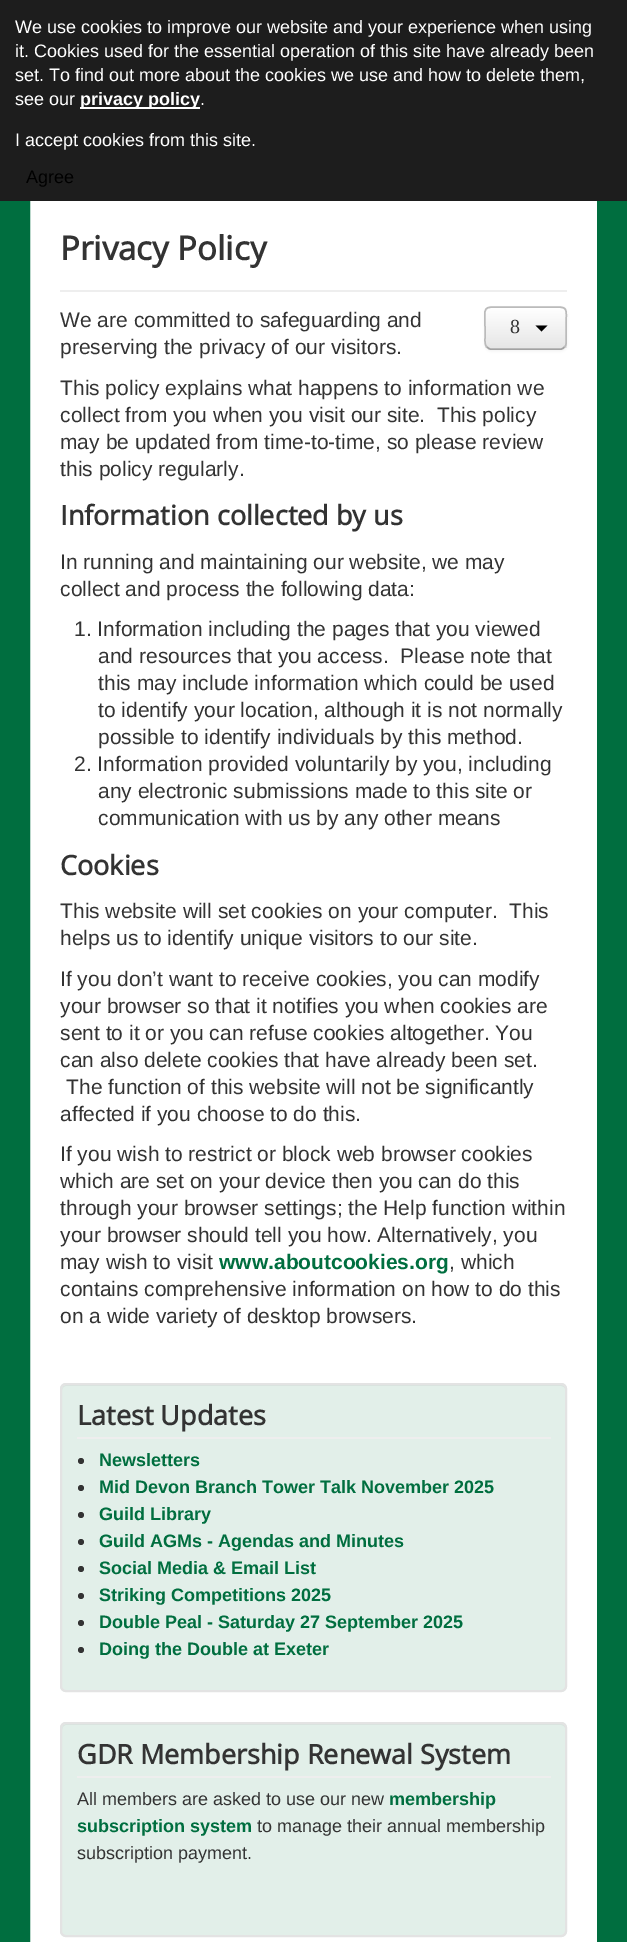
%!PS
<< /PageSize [627 1942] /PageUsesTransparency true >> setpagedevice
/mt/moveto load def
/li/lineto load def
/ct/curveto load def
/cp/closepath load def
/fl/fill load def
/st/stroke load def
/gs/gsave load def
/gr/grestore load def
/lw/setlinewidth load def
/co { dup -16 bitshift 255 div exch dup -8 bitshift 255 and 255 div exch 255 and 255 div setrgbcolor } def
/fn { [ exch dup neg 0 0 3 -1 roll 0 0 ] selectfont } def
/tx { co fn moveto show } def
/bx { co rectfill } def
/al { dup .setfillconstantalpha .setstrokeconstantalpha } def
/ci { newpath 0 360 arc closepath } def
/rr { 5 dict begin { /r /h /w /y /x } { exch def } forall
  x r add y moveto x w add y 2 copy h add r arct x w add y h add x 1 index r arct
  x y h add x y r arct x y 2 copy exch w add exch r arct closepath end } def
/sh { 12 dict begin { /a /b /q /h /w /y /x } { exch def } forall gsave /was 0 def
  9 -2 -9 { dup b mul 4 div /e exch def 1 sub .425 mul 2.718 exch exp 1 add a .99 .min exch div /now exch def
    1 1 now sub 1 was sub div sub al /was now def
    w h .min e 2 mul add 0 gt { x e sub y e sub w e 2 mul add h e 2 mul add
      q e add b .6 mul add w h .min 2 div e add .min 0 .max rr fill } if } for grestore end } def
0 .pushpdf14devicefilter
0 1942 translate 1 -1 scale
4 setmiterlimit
0 0 627 1942 16#FFFFFF bx
16#006E3F co
30 lw
15 -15 597 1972 rectstroke
0 0 627 201 16#1D1D1D bx
80 107 120 2 16#FFFFFF bx
60 290 507 2 16#EEEEEE bx
16#000000 co
485 308 82 43 6 1.5 .05 sh
16#F5F5F5 co
485 306 82 44 6 rr fl
gs
485 306 82 44 6 rr clip newpath
gs 485 308 mt 567 308 li 567 348 li 485 348 li cp clip newpath
<< /ShadingType 2 /ColorSpace /DeviceRGB /Coords [526 308 526 348] /Extend [true true] /Function << /FunctionType 2 /Domain [0 1] /C0 [1 1 1] /C1 [.902 .902 .902] /N 1 >> >> shfill gr
gr
16#FFFFFF co
490 309 mt 561 309 li 563 309 566 311 566 314 ct 566 305 555 308 549 308 ct 503 308 li 497 308 486 305 486 314 ct 486 311 488 309 490 309 ct cp fl
16#A2A2A2 co
1.5 lw
564.5 347 mt 563.5 348 562.5 349 561 349 ct 490.5 349 li 489 349 488 348 487 347 ct st
16#BBBBBB co
487 347 mt 484.5 345 485 341 485 338 ct 485 328 li 485 306 481.5 307 502 307 ct 549 307 li 570 307 566 306 566 328 ct 566 338 li 566 341 567 345 564.5 347 ct st
16#000000 co
535.5 325.5 mt 547.5 325.5 li 541.5 331.5 li cp fl
16#E2EFE9 co
60 1383 507 309 6 rr fl
16#D7E3DD co
66 1386 mt 561 1386 li 563 1386 566 1388 566 1390 ct 566 1387 564 1385 561 1385 ct 67 1385 li 64 1385 62 1387 62 1390 ct 62 1388 64 1386 66 1386 ct cp fl
16#E3E3E3 co
2 lw
61 1384 505 307 5 rr st
77 1437 474 2 16#EEEEEE bx
16#333333 co
81 1461 3 ci fl
81 1488 3 ci fl
81 1515 3 ci fl
81 1542 3 ci fl
81 1569 3 ci fl
81 1596 3 ci fl
81 1623 3 ci fl
81 1650 3 ci fl
16#E2EFE9 co
60 1722 507 215 6 rr fl
16#D7E3DD co
66 1725 mt 561 1725 li 563 1725 566 1727 566 1730 ct 566 1729 li 566 1726 564 1724 561 1724 ct 67 1724 li 64 1724 62 1726 62 1729 ct 62 1730 li 62 1727 64 1725 66 1725 ct cp fl
16#E3E3E3 co
61 1723 505 213 5 rr st
77 1776 474 2 16#EEEEEE bx
(We use cookies to improve our website and your experience when using) 15 33 /LiberationSans-Regular 18 16#FFFFFF tx
(it. Cookies used for the essential operation of this site have already been) 15 57 /LiberationSans-Regular 18 16#FFFFFF tx
(set. To find out more about the cookies we use and how to delete them,) 15 81 /LiberationSans-Regular 18 16#FFFFFF tx
(see our) 15 105 /LiberationSans-Regular 18 16#FFFFFF tx
(privacy policy) 80 105 /LiberationSans-Bold 18 16#FFFFFF tx
(.) 200 105 /LiberationSans-Regular 18 16#FFFFFF tx
(I accept cookies from this site.) 15 146 /LiberationSans-Regular 18 16#FFFFFF tx
(Agree) 26 183 /LiberationSans-Regular 18 16#000000 tx
(Privacy Policy) 60 260 /OpenSans-Bold 33 16#333333 tx
(We are committed to safeguarding and) 60 327 /LiberationSans-Regular 21 16#333333 tx
(preserving the privacy of our visitors.) 60 354 /LiberationSans-Regular 21 16#333333 tx
(This policy explains what happens to information we) 60 395 /LiberationSans-Regular 21 16#333333 tx
(collect from you when you visit our site.  This policy) 60 422 /LiberationSans-Regular 21 16#333333 tx
(may be updated from time-to-time, so please review) 60 449 /LiberationSans-Regular 21 16#333333 tx
(this policy regularly.) 60 476 /LiberationSans-Regular 21 16#333333 tx
(Information collected by us) 60 525 /OpenSans-Bold 27 16#333333 tx
(In running and maintaining our website, we may) 60 569 /LiberationSans-Regular 21 16#333333 tx
(collect and process the following data:) 60 596 /LiberationSans-Regular 21 16#333333 tx
(1. Information including the pages that you viewed) 74 636 /LiberationSans-Regular 21 16#333333 tx
(and resources that you access.  Please note that) 98 663 /LiberationSans-Regular 21 16#333333 tx
(this may include information which could be used) 98 690 /LiberationSans-Regular 21 16#333333 tx
(to identify your location, although it is not normally) 98 717 /LiberationSans-Regular 21 16#333333 tx
(possible to identify individuals by this method.) 98 744 /LiberationSans-Regular 21 16#333333 tx
(2. Information provided voluntarily by you, including) 74 771 /LiberationSans-Regular 21 16#333333 tx
(any electronic submissions made to this site or) 98 798 /LiberationSans-Regular 21 16#333333 tx
(communication with us by any other means) 98 825 /LiberationSans-Regular 21 16#333333 tx
(Cookies) 60 875 /OpenSans-Bold 27 16#333333 tx
(This website will set cookies on your computer.  This) 60 918 /LiberationSans-Regular 21 16#333333 tx
(helps us to identify unique visitors to our site.) 60 945 /LiberationSans-Regular 21 16#333333 tx
(If you don’t want to receive cookies, you can modify) 60 986 /LiberationSans-Regular 21 16#333333 tx
(your browser so that it notifies you when cookies are) 60 1013 /LiberationSans-Regular 21 16#333333 tx
(sent to it or you can refuse cookies altogether. You) 60 1040 /LiberationSans-Regular 21 16#333333 tx
(can also delete cookies that have already been set.) 60 1067 /LiberationSans-Regular 21 16#333333 tx
(The function of this website will not be significantly) 66 1094 /LiberationSans-Regular 21 16#333333 tx
(affected if you choose to do this.) 60 1121 /LiberationSans-Regular 21 16#333333 tx
(If you wish to restrict or block web browser cookies) 60 1161 /LiberationSans-Regular 21 16#333333 tx
(which are set on your device then you can do this) 60 1188 /LiberationSans-Regular 21 16#333333 tx
(through your browser settings; the Help function within) 60 1215 /LiberationSans-Regular 21 16#333333 tx
(your browser should tell you how. Alternatively, you) 60 1242 /LiberationSans-Regular 21 16#333333 tx
(may wish to visit) 60 1269 /LiberationSans-Regular 21 16#333333 tx
(www.aboutcookies.org) 219 1269 /LiberationSans-Bold 21 16#006E3F tx
(, which) 449 1269 /LiberationSans-Regular 21 16#333333 tx
(contains comprehensive information on how to do this) 60 1296 /LiberationSans-Regular 21 16#333333 tx
(on a wide variety of desktop browsers.) 60 1323 /LiberationSans-Regular 21 16#333333 tx
(8) 510 333 /LiberationSerif-Regular 20 16#333333 tx
(Latest Updates) 77 1425 /OpenSans-Bold 27 16#333333 tx
(Newsletters) 99 1466 /LiberationSans-Bold 18 16#006E3F tx
(Mid Devon Branch Tower Talk November 2025) 99 1493 /LiberationSans-Bold 18 16#006E3F tx
(Guild Library) 99 1520 /LiberationSans-Bold 18 16#006E3F tx
(Guild AGMs - Agendas and Minutes) 99 1547 /LiberationSans-Bold 18 16#006E3F tx
(Social Media & Email List) 99 1574 /LiberationSans-Bold 18 16#006E3F tx
(Striking Competitions 2025) 99 1601 /LiberationSans-Bold 18 16#006E3F tx
(Double Peal - Saturday 27 September 2025) 99 1628 /LiberationSans-Bold 18 16#006E3F tx
(Doing the Double at Exeter) 99 1655 /LiberationSans-Bold 18 16#006E3F tx
(GDR Membership Renewal System) 77 1764 /OpenSans-Bold 27 16#333333 tx
(All members are asked to use our new) 77 1805 /LiberationSans-Regular 18 16#333333 tx
(membership) 389 1805 /LiberationSans-Bold 18 16#006E3F tx
(subscription system) 77 1832 /LiberationSans-Bold 18 16#006E3F tx
(to manage their annual membership) 257 1832 /LiberationSans-Regular 18 16#333333 tx
(subscription payment.) 77 1859 /LiberationSans-Regular 18 16#333333 tx
.poppdf14devicefilter showpage
